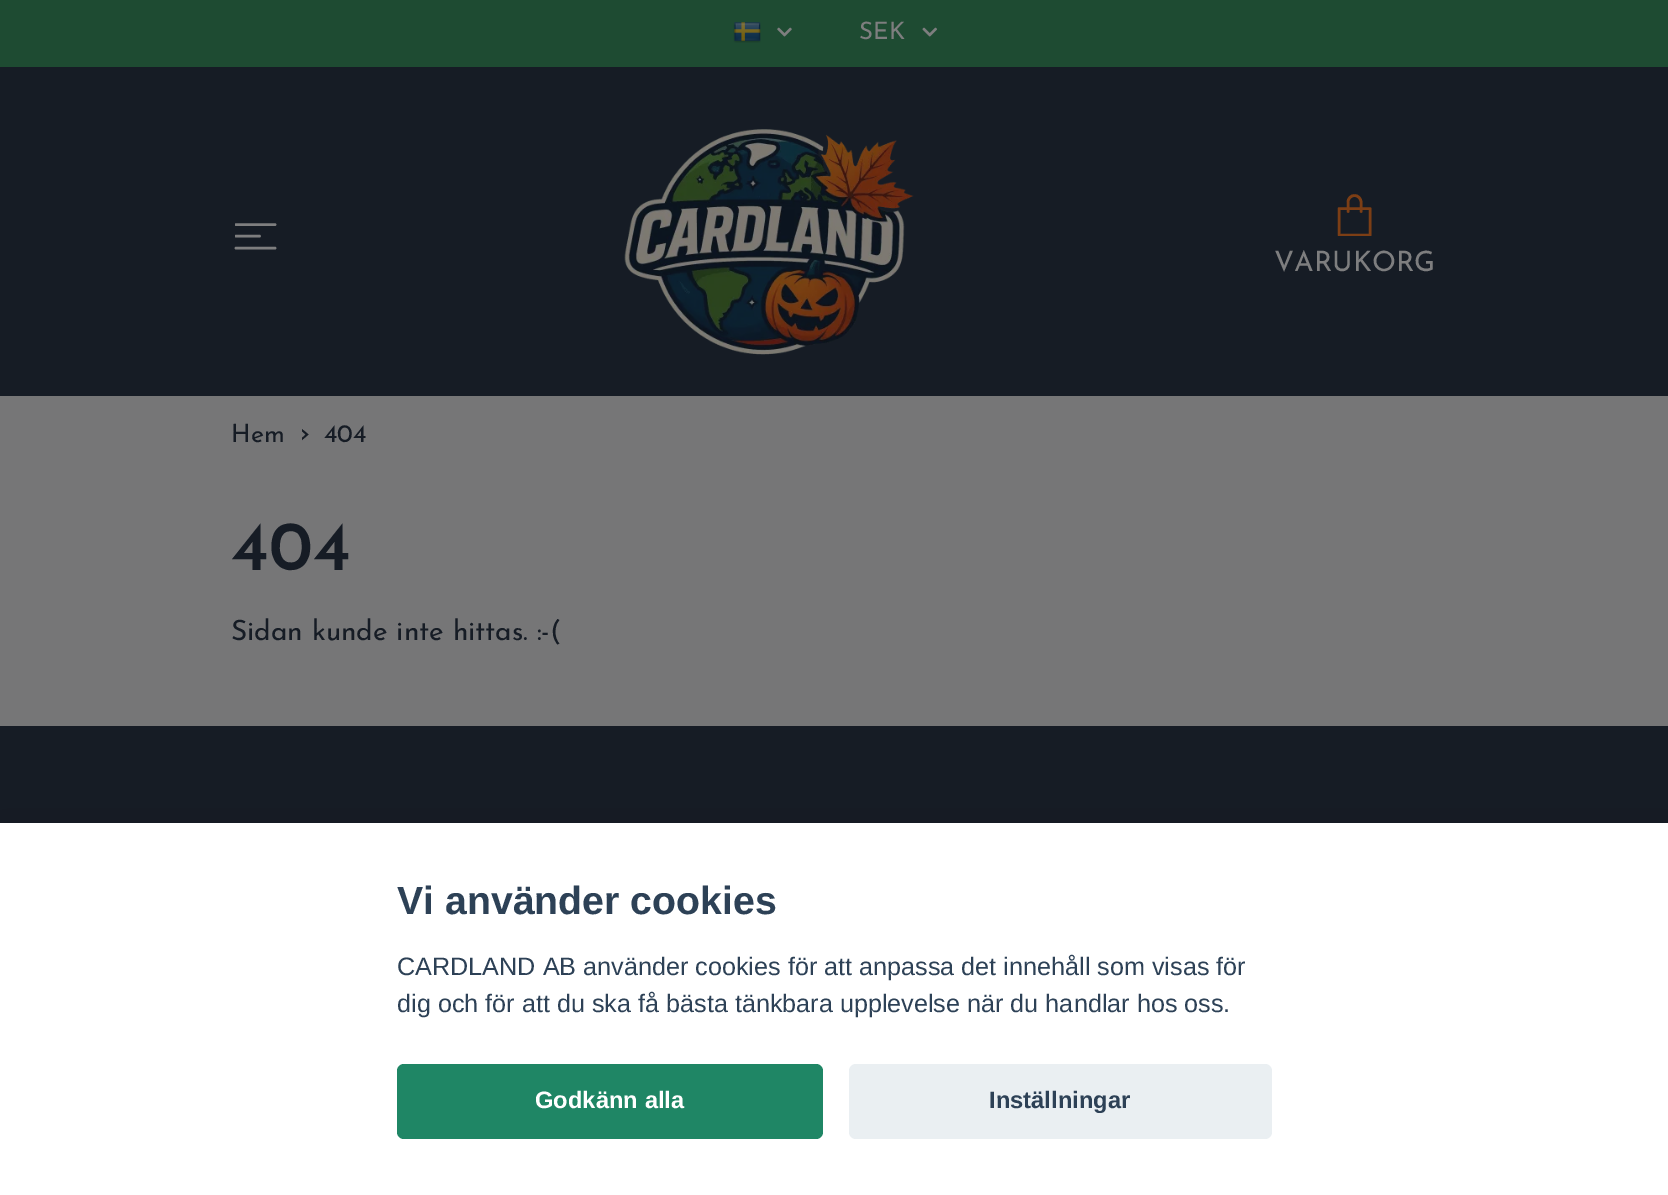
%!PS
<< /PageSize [1668 1195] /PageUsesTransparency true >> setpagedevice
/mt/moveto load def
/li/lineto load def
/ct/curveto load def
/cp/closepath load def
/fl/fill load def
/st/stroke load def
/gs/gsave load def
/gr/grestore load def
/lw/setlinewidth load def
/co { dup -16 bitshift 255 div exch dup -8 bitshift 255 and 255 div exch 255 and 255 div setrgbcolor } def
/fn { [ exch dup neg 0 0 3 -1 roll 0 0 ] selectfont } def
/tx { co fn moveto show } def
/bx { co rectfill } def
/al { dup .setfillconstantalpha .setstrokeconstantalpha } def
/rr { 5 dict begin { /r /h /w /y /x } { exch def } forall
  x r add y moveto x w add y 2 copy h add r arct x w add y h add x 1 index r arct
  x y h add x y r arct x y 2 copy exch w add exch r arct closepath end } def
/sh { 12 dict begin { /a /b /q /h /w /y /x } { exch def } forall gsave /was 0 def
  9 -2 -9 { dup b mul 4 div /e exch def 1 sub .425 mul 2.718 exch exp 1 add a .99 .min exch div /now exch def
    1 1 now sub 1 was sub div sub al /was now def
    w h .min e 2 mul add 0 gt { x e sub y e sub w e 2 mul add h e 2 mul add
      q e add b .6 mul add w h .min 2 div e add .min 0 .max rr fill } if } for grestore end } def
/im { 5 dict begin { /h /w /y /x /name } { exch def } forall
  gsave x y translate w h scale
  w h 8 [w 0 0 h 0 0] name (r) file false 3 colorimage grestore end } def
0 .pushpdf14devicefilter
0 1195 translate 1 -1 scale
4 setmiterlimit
0 0 1668 1195 16#767677 bx
0 0 1668 67 16#1E4B32 bx
(media/1.raw) 733 22 28 21 im
(media/2.raw) 777 27 15 10 im
(media/3.raw) 922 27 15 10 im
0 67 1668 329 16#161C25 bx
gs
235 215 42 42 rectclip
16#7E7E7F co
2.6 lw
1 setlinecap
1 setlinejoin
236 224.5 mt 275 224.5 li 236 236 mt 259.5 236 li st
gr
16#7E7E7F co
2.6 lw
1 setlinecap
1 setlinejoin
236 248 mt 275 248 li st
(media/4.raw) 624 129 290 226 im
gs
1334 194 42 42 rectclip
16#7C3E15 co
1339 208.5 mt 1370 208.5 li 1370 235 li 1339 235 li cp st
gr
16#7C3E15 co
1348 211.5 mt 1348 202 li 1348 198.5 1351 195.5 1354.5 195.5 ct 1358 195.5 1361 198.5 1361 202 ct 1361 211.5 li st
0 726 1668 97 16#161C25 bx
16#020203 co
0 840 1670 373 0 26 .28 sh
0 823 1668 372 16#FFFFFF bx
16#1F8665 co
397 1064 426 75 7 rr fl
16#EAEFF2 co
849 1064 423 75 7 rr fl
(SEK) 859 39 /JosefinSans-Regular 24 16#7E7E7F tx
(VARUKORG) 1274 271 /JosefinSans-Regular 28 16#7E7E7F tx
(Hem) 231 442 /JosefinSans-Regular 25.2 16#161C25 tx
(›) 299 442 /JosefinSans-Regular 31 16#161C25 tx
(404) 324 442 /JosefinSans-Regular 25.2 16#161C25 tx
(404) 231 570 /JosefinSans-SemiBold 70 16#161C25 tx
(Sidan kunde inte hittas. :-\() 231 640 /JosefinSans-Regular 28 16#161C25 tx
(Vi använder cookies) 397 914 /LiberationSans-Bold 39.25 16#2D4156 tx
(CARDLAND AB använder cookies för att anpassa det innehåll som visas för) 397 975 /LiberationSans-Regular 25.2 16#2D4156 tx
(dig och för att du ska få bästa tänkbara upplevelse när du handlar hos oss.) 397 1012 /LiberationSans-Regular 25.2 16#2D4156 tx
(Godkänn alla) 535 1108 /LiberationSans-Bold 23.75 16#FFFFFF tx
(Inställningar) 989 1108 /LiberationSans-Bold 23.75 16#2D4156 tx
.poppdf14devicefilter showpage
